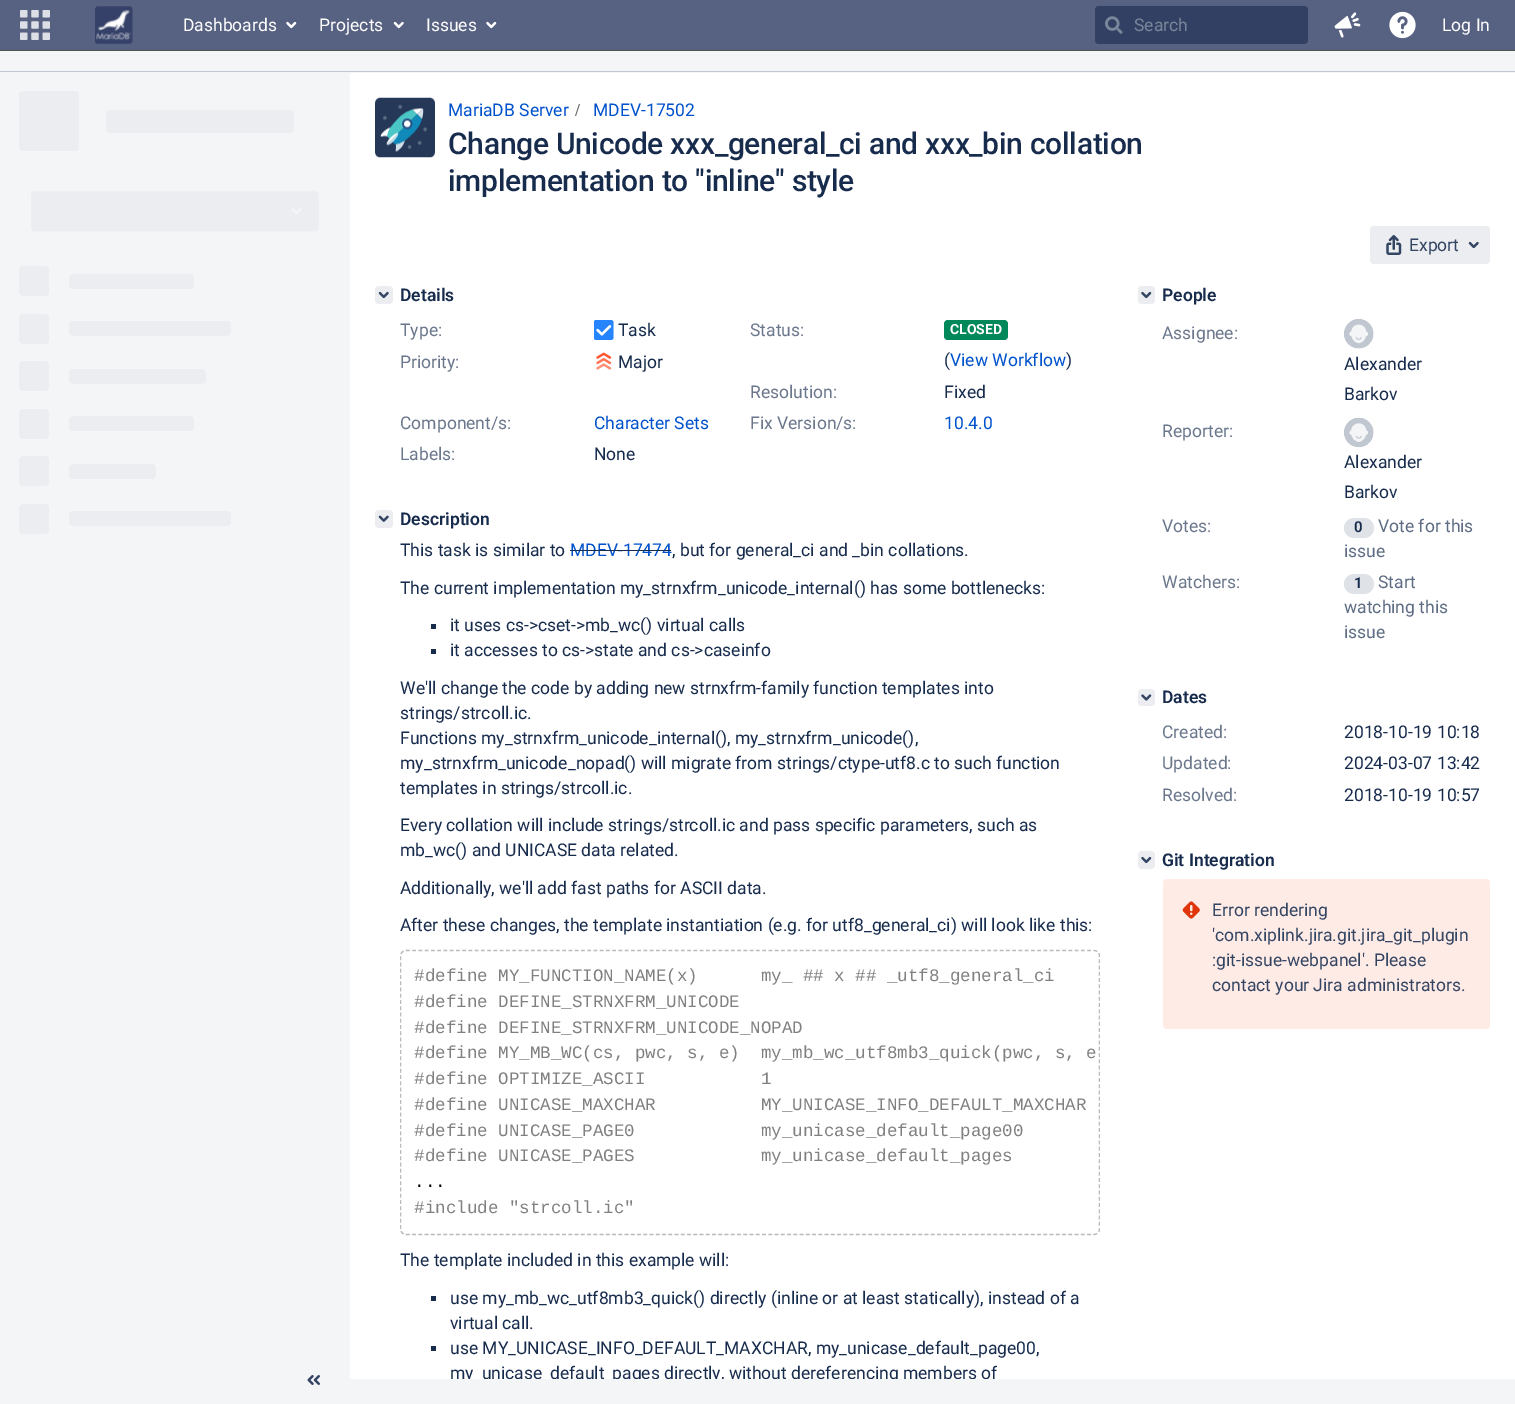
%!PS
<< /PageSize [1515 1404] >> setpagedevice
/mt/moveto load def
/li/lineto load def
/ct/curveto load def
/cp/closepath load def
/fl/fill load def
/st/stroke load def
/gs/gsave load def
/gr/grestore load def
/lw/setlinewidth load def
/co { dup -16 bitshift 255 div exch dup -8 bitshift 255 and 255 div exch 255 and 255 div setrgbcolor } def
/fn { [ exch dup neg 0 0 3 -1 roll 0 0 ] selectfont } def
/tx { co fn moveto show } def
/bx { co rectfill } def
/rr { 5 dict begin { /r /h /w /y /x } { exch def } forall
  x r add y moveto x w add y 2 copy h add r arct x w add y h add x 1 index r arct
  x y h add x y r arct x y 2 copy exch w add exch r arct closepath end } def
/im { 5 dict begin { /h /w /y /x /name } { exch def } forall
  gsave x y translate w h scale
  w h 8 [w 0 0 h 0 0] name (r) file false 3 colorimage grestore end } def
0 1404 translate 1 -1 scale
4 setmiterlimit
0 0 1515 1404 16#F4F5F7 bx
0 0 1515 50 16#576181 bx
0 50 1515 1 16#525254 bx
(media/1.raw) 20 10 30 30 im
(media/2.raw) 95 6 38 38 im
(media/3.raw) 286 21 11 8 im
(media/4.raw) 393 21 11 8 im
(media/3.raw) 486 21 11 8 im
16#324163 co
1095 6 213 38 4 rr fl
(media/5.raw) 1105 16 18 18 im
(media/6.raw) 1334 12 27 26 im
(media/7.raw) 1389 11 27 28 im
0 71 1515 1 16#C1C7D0 bx
(media/8.raw) 19 91 300 443 im
(media/9.raw) 307 1375 13 10 im
350 73 1165 1306 16#FFFFFF bx
(media/10.raw) 375 97 60 61 im
16#707070 co
576 116 mt 580 104 li 579 104 li 575 116 li cp fl
16#EBEDF0 co
1370 226 120 38 4 rr fl
(media/11.raw) 1386 235 16 20 im
(media/12.raw) 1468 241 11 8 im
375 286 18 18 4 rr fl
(media/13.raw) 378 291 11 8 im
(media/14.raw) 594 320 20 20 im
16#00875A co
944 320 64 20 4 rr fl
(media/15.raw) 596 352 16 18 im
16#EBEDF0 co
375 510 18 18 4 rr fl
(media/16.raw) 378 515 11 7 im
431 624 5 5 16#172B4D bx
431 649 5 5 16#172B4D bx
gs
400 538 700 841 rectclip
16#BBBBBB co
1.2 lw
[3.75 2.5] 0 setdash
406 950.5 mt 1094 950.5 li 1097 950.5 1099.5 953 1099.5 956 ct 1099.5 1229 li 1099.5 1232 1097 1234.5 1094 1234.5 ct 406 1234.5 li 403 1234.5 400.5 1232 400.5 1229 ct 400.5 956 li 400.5 953 403 950.5 406 950.5 ct cp st
gr
431 1296 5 5 16#172B4D bx
431 1346 5 5 16#172B4D bx
16#EBEDF0 co
1138 286 17 18 4 rr fl
(media/17.raw) 1141 291 11 8 im
(media/18.raw) 1344 319 30 30 im
(media/19.raw) 1344 418 30 30 im
16#DFE2E6 co
1344 518 30 20 10 rr fl
1344 574 30 20 10 rr fl
16#EBEDF0 co
1138 689 17 17 4 rr fl
(media/20.raw) 1141 694 11 7 im
1138 851 17 18 4 rr fl
(media/17.raw) 1141 856 11 8 im
16#FFEBE6 co
1163 879 327 150 4 rr fl
(media/21.raw) 1182 901 18 18 im
(Dashboards) 183 31 /Roboto-Regular 17.5 16#FFFFFF tx
(Projects) 319 31 /Roboto-Regular 17.5 16#FFFFFF tx
(Issues) 426 31 /Roboto-Regular 17.5 16#FFFFFF tx
(Search) 1134 31 /Roboto-Regular 17.5 16#7A869A tx
(Log In) 1442 31 /Roboto-Regular 17.5 16#FFFFFF tx
(MariaDB Server) 448 116 /Roboto-Regular 17.5 16#0052CC tx
(MDEV-17502) 593 116 /Roboto-Regular 17.5 16#0052CC tx
/Roboto-Medium 30 fn
16#172B4D co
448 154 mt -.3 0 (Change Unicode xxx_general_ci and xxx_bin collation) ashow
448 191 mt -.3 0 (implementation to "inline" style) ashow
(Export) 1409 251 /Roboto-Regular 17.5 16#344563 tx
(Details) 400 301 /Roboto-SemiBold 17.5 16#172B4D tx
(Type:) 400 336 /Roboto-Regular 17.5 16#6B778C tx
(Task) 618 336 /Roboto-Regular 17.5 16#172B4D tx
(Status:) 750 336 /Roboto-Regular 17.5 16#6B778C tx
(CLOSED) 950 334 /Roboto-Bold 14 16#FFFFFF tx
(\() 944 366 /Roboto-Regular 17.5 16#172B4D tx
(View Workflow) 950 366 /Roboto-Regular 17.5 16#0052CC tx
(\)) 1066 366 /Roboto-Regular 17.5 16#172B4D tx
(Priority:) 400 368 /Roboto-Regular 17.5 16#6B778C tx
(Major) 618 368 /Roboto-Regular 17.5 16#172B4D tx
(Resolution:) 750 398 /Roboto-Regular 17.5 16#6B778C tx
(Fixed) 944 398 /Roboto-Regular 17.5 16#172B4D tx
(Component/s:) 400 429 /Roboto-Regular 17.5 16#6B778C tx
(Character Sets) 594 429 /Roboto-Regular 17.5 16#0052CC tx
(Fix Version/s:) 750 429 /Roboto-Regular 17.5 16#6B778C tx
(10.4.0) 944 429 /Roboto-Regular 17.5 16#0052CC tx
(Labels:) 400 460 /Roboto-Regular 17.5 16#6B778C tx
(None) 594 460 /Roboto-Regular 17.5 16#172B4D tx
(Description) 400 525 /Roboto-SemiBold 17.5 16#172B4D tx
(This task is similar to) 400 556 /Roboto-Regular 17.5 16#172B4D tx
(MDEV-17474) 570 556 /Roboto-Regular 17.5 16#0052CC tx
570 550 101 1 16#172B4D bx
(, but for general_ci and _bin collations.) 672 556 /Roboto-Regular 17.5 16#172B4D tx
(The current implementation my_strnxfrm_unicode_internal\(\) has some bottlenecks:) 400 594 /Roboto-Regular 17.5 16#172B4D tx
(it uses cs->cset->mb_wc\(\) virtual calls) 450 631 /Roboto-Regular 17.5 16#172B4D tx
(it accesses to cs->state and cs->caseinfo) 450 656 /Roboto-Regular 17.5 16#172B4D tx
(We'll change the code by adding new strnxfrm-family function templates into) 400 694 /Roboto-Regular 17.5 16#172B4D tx
(strings/strcoll.ic.) 400 719 /Roboto-Regular 17.5 16#172B4D tx
(Functions my_strnxfrm_unicode_internal\(\), my_strnxfrm_unicode\(\),) 400 744 /Roboto-Regular 17.5 16#172B4D tx
(my_strnxfrm_unicode_nopad\(\) will migrate from strings/ctype-utf8.c to such function) 400 769 /Roboto-Regular 17.5 16#172B4D tx
(templates in strings/strcoll.ic.) 400 794 /Roboto-Regular 17.5 16#172B4D tx
(Every collation will include strings/strcoll.ic and pass specific parameters, such as) 400 831 /Roboto-Regular 17.5 16#172B4D tx
(mb_wc\(\) and UNICASE data related.) 400 856 /Roboto-Regular 17.5 16#172B4D tx
(Additionally, we'll add fast paths for ASCII data.) 400 894 /Roboto-Regular 17.5 16#172B4D tx
(After these changes, the template instantiation \(e.g. for utf8_general_ci\) will look like this:) 400 931 /Roboto-Regular 17.5 16#172B4D tx
(#define MY_FUNCTION_NAME\(x\)      my_ ## x ## _utf8_general_ci) 414 981 /LiberationMono-Regular 17.5 16#808080 tx
(#define DEFINE_STRNXFRM_UNICODE) 414 1007 /LiberationMono-Regular 17.5 16#808080 tx
(#define DEFINE_STRNXFRM_UNICODE_NOPAD) 414 1033 /LiberationMono-Regular 17.5 16#808080 tx
(#define MY_MB_WC\(cs, pwc, s, e\)  my_mb_wc_utf8mb3_quick\(pwc, s, e) 414 1058 /LiberationMono-Regular 17.5 16#808080 tx
(#define OPTIMIZE_ASCII           1) 414 1084 /LiberationMono-Regular 17.5 16#808080 tx
(#define UNICASE_MAXCHAR          MY_UNICASE_INFO_DEFAULT_MAXCHAR) 414 1110 /LiberationMono-Regular 17.5 16#808080 tx
(#define UNICASE_PAGE0            my_unicase_default_page00) 414 1136 /LiberationMono-Regular 17.5 16#808080 tx
(#define UNICASE_PAGES            my_unicase_default_pages) 414 1161 /LiberationMono-Regular 17.5 16#808080 tx
(...) 414 1187 /LiberationMono-Regular 17.5 16#000000 tx
(#include "strcoll.ic") 414 1213 /LiberationMono-Regular 17.5 16#808080 tx
(The template included in this example will:) 400 1266 /Roboto-Regular 17.5 16#172B4D tx
(use my_mb_wc_utf8mb3_quick\(\) directly \(inline or at least statically\), instead of a) 450 1304 /Roboto-Regular 17.5 16#172B4D tx
(virtual call.) 450 1329 /Roboto-Regular 17.5 16#172B4D tx
(use MY_UNICASE_INFO_DEFAULT_MAXCHAR, my_unicase_default_page00,) 450 1354 /Roboto-Regular 17.5 16#172B4D tx
gs
400 538 700 841 rectclip
(my_unicase_default_pages directly, without dereferencing members of) 450 1379 /Roboto-Regular 17.5 16#172B4D tx
gr
(People) 1162 301 /Roboto-SemiBold 17.5 16#172B4D tx
(Assignee:) 1162 339 /Roboto-Regular 17.5 16#6B778C tx
(Alexander) 1344 370 /Roboto-Regular 17.5 16#172B4D tx
(Barkov) 1344 400 /Roboto-Regular 17.5 16#172B4D tx
(Reporter:) 1162 437 /Roboto-Regular 17.5 16#6B778C tx
(Alexander) 1344 468 /Roboto-Regular 17.5 16#172B4D tx
(Barkov) 1344 498 /Roboto-Regular 17.5 16#172B4D tx
(Votes:) 1162 532 /Roboto-Regular 17.5 16#6B778C tx
(0) 1354 532 /Roboto-SemiBold 15 16#172B4D tx
(Vote for this) 1378 532 /Roboto-Regular 17.5 16#5E6C84 tx
(issue) 1344 557 /Roboto-Regular 17.5 16#5E6C84 tx
(Watchers:) 1162 588 /Roboto-Regular 17.5 16#6B778C tx
(1) 1354 588 /Roboto-SemiBold 15 16#172B4D tx
(Start) 1378 588 /Roboto-Regular 17.5 16#5E6C84 tx
(watching this) 1344 613 /Roboto-Regular 17.5 16#5E6C84 tx
(issue) 1344 638 /Roboto-Regular 17.5 16#5E6C84 tx
(Dates) 1162 703 /Roboto-SemiBold 17.5 16#172B4D tx
(Created:) 1162 738 /Roboto-Regular 17.5 16#6B778C tx
(2018-10-19 10:18) 1344 738 /Roboto-Regular 17.5 16#172B4D tx
(Updated:) 1162 769 /Roboto-Regular 17.5 16#6B778C tx
(2024-03-07 13:42) 1344 769 /Roboto-Regular 17.5 16#172B4D tx
(Resolved:) 1162 801 /Roboto-Regular 17.5 16#6B778C tx
(2018-10-19 10:57) 1344 801 /Roboto-Regular 17.5 16#172B4D tx
(Git Integration) 1162 866 /Roboto-SemiBold 17.5 16#172B4D tx
(Error rendering) 1212 916 /Roboto-Regular 17.5 16#344563 tx
('com.xiplink.jira.git.jira_git_plugin) 1212 941 /Roboto-Regular 17.5 16#344563 tx
(:git-issue-webpanel'. Please) 1212 966 /Roboto-Regular 17.5 16#344563 tx
(contact your Jira administrators.) 1212 991 /Roboto-Regular 17.5 16#344563 tx
showpage
